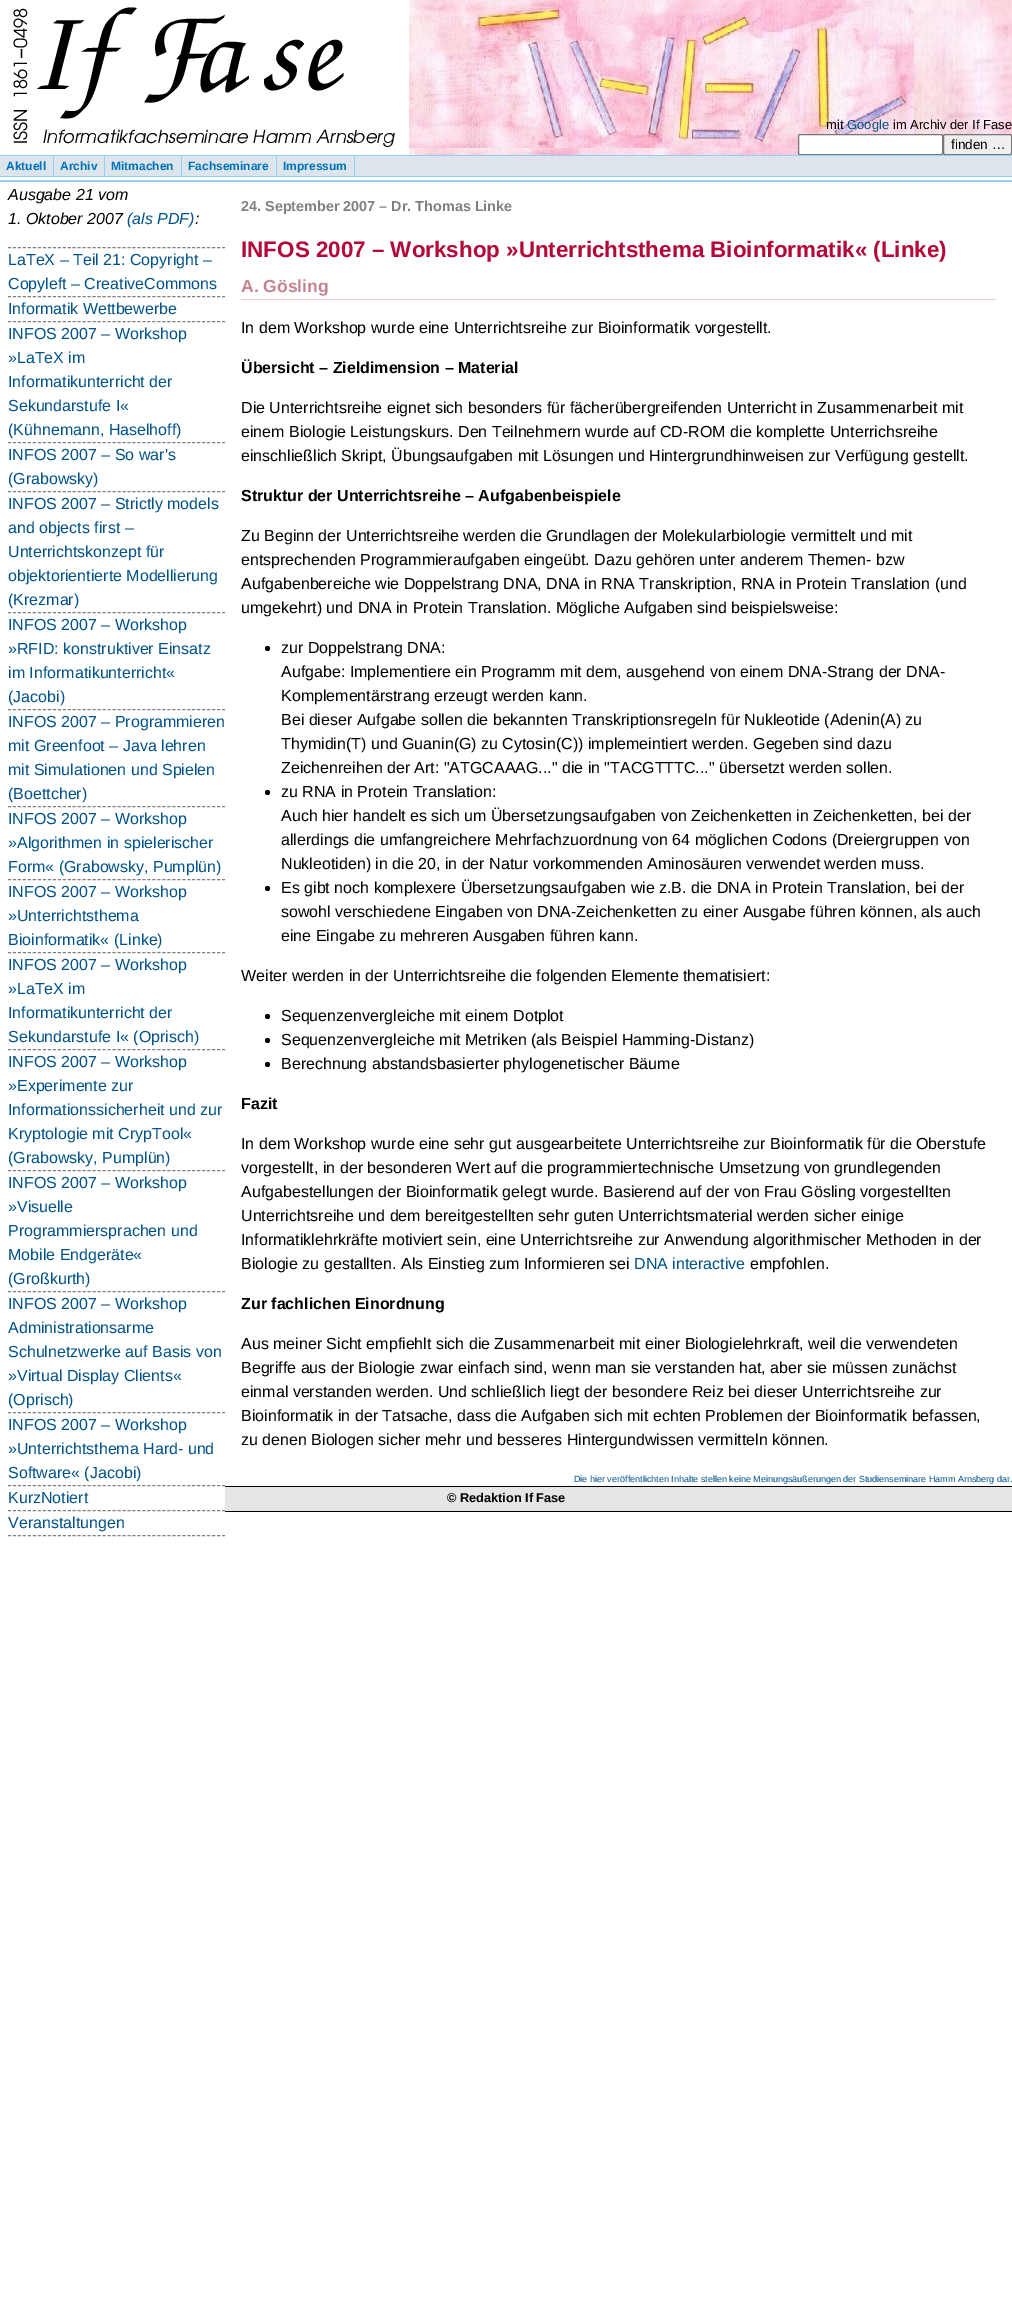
%!PS
<< /PageSize [1012 2306] >> setpagedevice
/mt/moveto load def
/li/lineto load def
/fl/fill load def
/st/stroke load def
/gs/gsave load def
/gr/grestore load def
/co { dup -16 bitshift 255 div exch dup -8 bitshift 255 and 255 div exch 255 and 255 div setrgbcolor } def
/fn { [ exch dup neg 0 0 3 -1 roll 0 0 ] selectfont } def
/tx { co fn moveto show } def
/bx { co rectfill } def
/ci { newpath 0 360 arc closepath } def
/rr { 5 dict begin { /r /h /w /y /x } { exch def } forall
  x r add y moveto x w add y 2 copy h add r arct x w add y h add x 1 index r arct
  x y h add x y r arct x y 2 copy exch w add exch r arct closepath end } def
/im { 5 dict begin { /h /w /y /x /name } { exch def } forall
  gsave x y translate w h scale
  w h 8 [w 0 0 h 0 0] name (r) file false 3 colorimage grestore end } def
0 2306 translate 1 -1 scale
4 setmiterlimit
0 0 1012 2306 16#FFFFFF bx
(media/1.raw) 13 7 382 140 im
(media/2.raw) 409 0 603 155 im
798.5 134.5 144 20 1.5 rr gs fl gr
16#767676 co
st
16#EFEFEF co
943.5 134.5 68 20 1.5 rr gs fl gr
16#767676 co
st
0 180 1012 2 16#95CFF5 bx
0 156 1012 20 16#DCE5EB bx
0 155 1012 1 16#95CFF5 bx
0 176 1012 1 16#95CFF5 bx
53 156 1 20 16#95CFF5 bx
104 156 1 20 16#95CFF5 bx
181 156 1 20 16#95CFF5 bx
276 156 1 20 16#95CFF5 bx
354 156 1 20 16#95CFF5 bx
16#808080 co
[3 1.98] 0 setdash
8 247.5 mt 225 247.5 li st
8 296.5 mt 225 296.5 li st
8 321.5 mt 225 321.5 li st
8 442.5 mt 225 442.5 li st
8 491.5 mt 225 491.5 li st
8 612.5 mt 225 612.5 li st
8 709.5 mt 225 709.5 li st
8 806.5 mt 225 806.5 li st
8 879.5 mt 225 879.5 li st
8 952.5 mt 225 952.5 li st
8 1049.5 mt 225 1049.5 li st
8 1170.5 mt 225 1170.5 li st
8 1291.5 mt 225 1291.5 li st
8 1412.5 mt 225 1412.5 li st
8 1485.5 mt 225 1485.5 li st
8 1510.5 mt 225 1510.5 li st
8 1535.5 mt 225 1535.5 li st
241 299 755 1 16#EEC8D2 bx
16#000000 co
267.5 648.5 2.5 ci fl
267.5 792.5 2.5 ci fl
267.5 888.5 2.5 ci fl
267.5 1016.5 2.5 ci fl
267.5 1040.5 2.5 ci fl
267.5 1064.5 2.5 ci fl
225 1487 787 24 16#E6E6E6 bx
225 1486 787 1 16#000000 bx
225 1511 787 1 16#000000 bx
(mit) 826 129 /LiberationSans-Regular 13 16#000000 tx
(Google) 847 129 /LiberationSans-Regular 13 16#005288 tx
(im Archiv der If Fase) 893 129 /LiberationSans-Regular 13 16#000000 tx
(finden …) 951 149 /LiberationSans-Regular 13.5 16#000000 tx
(Aktuell) 6 170 /LiberationSans-Bold 12 16#0072BC tx
(Archiv) 60 170 /LiberationSans-Bold 12 16#0072BC tx
(Mitmachen) 111 170 /LiberationSans-Bold 12 16#0072BC tx
(Fachseminare) 188 170 /LiberationSans-Bold 12 16#0072BC tx
(Impressum) 283 170 /LiberationSans-Bold 12 16#0072BC tx
(Ausgabe 21 vom) 8 200 /LiberationSans-Italic 16 16#000000 tx
(1. Oktober 2007) 8 224 /LiberationSans-Italic 16 16#000000 tx
(\(als PDF\)) 127 224 /LiberationSans-Italic 16 16#005288 tx
(:) 195 224 /LiberationSans-Italic 16 16#000000 tx
(LaTeX – Teil 21: Copyright –) 8 265 /LiberationSans-Regular 16 16#005288 tx
(Copyleft – CreativeCommons) 8 289 /LiberationSans-Regular 16 16#005288 tx
(Informatik Wettbewerbe) 8 314 /LiberationSans-Regular 16 16#005288 tx
(INFOS 2007 – Workshop) 8 339 /LiberationSans-Regular 16 16#005288 tx
(»LaTeX im) 8 363 /LiberationSans-Regular 16 16#005288 tx
(Informatikunterricht der) 8 387 /LiberationSans-Regular 16 16#005288 tx
(Sekundarstufe I«) 8 411 /LiberationSans-Regular 16 16#005288 tx
(\(Kühnemann, Haselhoff\)) 8 435 /LiberationSans-Regular 16 16#005288 tx
(INFOS 2007 – So war's) 8 460 /LiberationSans-Regular 16 16#005288 tx
(\(Grabowsky\)) 8 484 /LiberationSans-Regular 16 16#005288 tx
(INFOS 2007 – Strictly models) 8 509 /LiberationSans-Regular 16 16#005288 tx
(and objects first –) 8 533 /LiberationSans-Regular 16 16#005288 tx
(Unterrichtskonzept für) 8 557 /LiberationSans-Regular 16 16#005288 tx
(objektorientierte Modellierung) 8 581 /LiberationSans-Regular 16 16#005288 tx
(\(Krezmar\)) 8 605 /LiberationSans-Regular 16 16#005288 tx
(INFOS 2007 – Workshop) 8 630 /LiberationSans-Regular 16 16#005288 tx
(»RFID: konstruktiver Einsatz) 8 654 /LiberationSans-Regular 16 16#005288 tx
(im Informatikunterricht«) 8 678 /LiberationSans-Regular 16 16#005288 tx
(\(Jacobi\)) 8 702 /LiberationSans-Regular 16 16#005288 tx
(INFOS 2007 – Programmieren) 8 727 /LiberationSans-Regular 16 16#005288 tx
(mit Greenfoot – Java lehren) 8 751 /LiberationSans-Regular 16 16#005288 tx
(mit Simulationen und Spielen) 8 775 /LiberationSans-Regular 16 16#005288 tx
(\(Boettcher\)) 8 799 /LiberationSans-Regular 16 16#005288 tx
(INFOS 2007 – Workshop) 8 824 /LiberationSans-Regular 16 16#005288 tx
(»Algorithmen in spielerischer) 8 848 /LiberationSans-Regular 16 16#005288 tx
(Form« \(Grabowsky, Pumplün\)) 8 872 /LiberationSans-Regular 16 16#005288 tx
(INFOS 2007 – Workshop) 8 897 /LiberationSans-Regular 16 16#005288 tx
(»Unterrichtsthema) 8 921 /LiberationSans-Regular 16 16#005288 tx
(Bioinformatik« \(Linke\)) 8 945 /LiberationSans-Regular 16 16#005288 tx
(INFOS 2007 – Workshop) 8 970 /LiberationSans-Regular 16 16#005288 tx
(»LaTeX im) 8 994 /LiberationSans-Regular 16 16#005288 tx
(Informatikunterricht der) 8 1018 /LiberationSans-Regular 16 16#005288 tx
(Sekundarstufe I« \(Oprisch\)) 8 1042 /LiberationSans-Regular 16 16#005288 tx
(INFOS 2007 – Workshop) 8 1067 /LiberationSans-Regular 16 16#005288 tx
(»Experimente zur) 8 1091 /LiberationSans-Regular 16 16#005288 tx
(Informationssicherheit und zur) 8 1115 /LiberationSans-Regular 16 16#005288 tx
(Kryptologie mit CrypTool«) 8 1139 /LiberationSans-Regular 16 16#005288 tx
(\(Grabowsky, Pumplün\)) 8 1163 /LiberationSans-Regular 16 16#005288 tx
(INFOS 2007 – Workshop) 8 1188 /LiberationSans-Regular 16 16#005288 tx
(»Visuelle) 8 1212 /LiberationSans-Regular 16 16#005288 tx
(Programmiersprachen und) 8 1236 /LiberationSans-Regular 16 16#005288 tx
(Mobile Endgeräte«) 8 1260 /LiberationSans-Regular 16 16#005288 tx
(\(Großkurth\)) 8 1284 /LiberationSans-Regular 16 16#005288 tx
(INFOS 2007 – Workshop) 8 1309 /LiberationSans-Regular 16 16#005288 tx
(Administrationsarme) 8 1333 /LiberationSans-Regular 16 16#005288 tx
(Schulnetzwerke auf Basis von) 8 1357 /LiberationSans-Regular 16 16#005288 tx
(»Virtual Display Clients«) 8 1381 /LiberationSans-Regular 16 16#005288 tx
(\(Oprisch\)) 8 1405 /LiberationSans-Regular 16 16#005288 tx
(INFOS 2007 – Workshop) 8 1430 /LiberationSans-Regular 16 16#005288 tx
(»Unterrichtsthema Hard- und) 8 1454 /LiberationSans-Regular 16 16#005288 tx
(Software« \(Jacobi\)) 8 1478 /LiberationSans-Regular 16 16#005288 tx
(KurzNotiert) 8 1503 /LiberationSans-Regular 16 16#005288 tx
(Veranstaltungen) 8 1528 /LiberationSans-Regular 16 16#005288 tx
(24. September 2007 – Dr. Thomas Linke) 241 211 /LiberationSans-Bold 14.4 16#808080 tx
(INFOS 2007 – Workshop »Unterrichtsthema Bioinformatik« \(Linke\)) 241 257 /LiberationSans-Bold 22.4 16#B30838 tx
(A. Gösling) 241 292 /LiberationSans-Bold 17.5 16#C58390 tx
(In dem Workshop wurde eine Unterrichtsreihe zur Bioinformatik vorgestellt.) 241 333 /LiberationSans-Regular 16 16#000000 tx
(Übersicht – Zieldimension – Material) 241 373 /LiberationSans-Bold 16 16#000000 tx
(Die Unterrichtsreihe eignet sich besonders für fächerübergreifenden Unterricht in Zusammenarbeit mit) 241 413 /LiberationSans-Regular 16 16#000000 tx
(einem Biologie Leistungskurs. Den Teilnehmern wurde auf CD-ROM die komplette Unterrichsreihe) 241 437 /LiberationSans-Regular 16 16#000000 tx
(einschließlich Skript, Übungsaufgaben mit Lösungen und Hintergrundhinweisen zur Verfügung gestellt.) 241 461 /LiberationSans-Regular 16 16#000000 tx
(Struktur der Unterrichtsreihe – Aufgabenbeispiele) 241 501 /LiberationSans-Bold 16 16#000000 tx
(Zu Beginn der Unterrichtsreihe werden die Grundlagen der Molekularbiologie vermittelt und mit) 241 541 /LiberationSans-Regular 16 16#000000 tx
(entsprechenden Programmieraufgaben eingeübt. Dazu gehören unter anderem Themen- bzw) 241 565 /LiberationSans-Regular 16 16#000000 tx
(Aufgabenbereiche wie Doppelstrang DNA, DNA in RNA Transkription, RNA in Protein Translation \(und) 241 589 /LiberationSans-Regular 16 16#000000 tx
(umgekehrt\) und DNA in Protein Translation. Mögliche Aufgaben sind beispielsweise:) 241 613 /LiberationSans-Regular 16 16#000000 tx
(zur Doppelstrang DNA:) 281 653 /LiberationSans-Regular 16 16#000000 tx
(Aufgabe: Implementiere ein Programm mit dem, ausgehend von einem DNA-Strang der DNA-) 281 677 /LiberationSans-Regular 16 16#000000 tx
(Komplementärstrang erzeugt werden kann.) 281 701 /LiberationSans-Regular 16 16#000000 tx
(Bei dieser Aufgabe sollen die bekannten Transkriptionsregeln für Nukleotide \(Adenin\(A\) zu) 281 725 /LiberationSans-Regular 16 16#000000 tx
(Thymidin\(T\) und Guanin\(G\) zu Cytosin\(C\)\) implemeintiert werden. Gegeben sind dazu) 281 749 /LiberationSans-Regular 16 16#000000 tx
(Zeichenreihen der Art: "ATGCAAAG..." die in "TACGTTTC..." übersetzt werden sollen.) 281 773 /LiberationSans-Regular 16 16#000000 tx
(zu RNA in Protein Translation:) 281 797 /LiberationSans-Regular 16 16#000000 tx
(Auch hier handelt es sich um Übersetzungsaufgaben von Zeichenketten in Zeichenketten, bei der) 281 821 /LiberationSans-Regular 16 16#000000 tx
(allerdings die umfangreichere Mehrfachzuordnung von 64 möglichen Codons \(Dreiergruppen von) 281 845 /LiberationSans-Regular 16 16#000000 tx
(Nukleotiden\) in die 20, in der Natur vorkommenden Aminosäuren verwendet werden muss.) 281 869 /LiberationSans-Regular 16 16#000000 tx
(Es gibt noch komplexere Übersetzungsaufgaben wie z.B. die DNA in Protein Translation, bei der) 281 893 /LiberationSans-Regular 16 16#000000 tx
(sowohl verschiedene Eingaben von DNA-Zeichenketten zu einer Ausgabe führen können, als auch) 281 917 /LiberationSans-Regular 16 16#000000 tx
(eine Eingabe zu mehreren Ausgaben führen kann.) 281 941 /LiberationSans-Regular 16 16#000000 tx
(Weiter werden in der Unterrichtsreihe die folgenden Elemente thematisiert:) 241 981 /LiberationSans-Regular 16 16#000000 tx
(Sequenzenvergleiche mit einem Dotplot) 281 1021 /LiberationSans-Regular 16 16#000000 tx
(Sequenzenvergleiche mit Metriken \(als Beispiel Hamming-Distanz\)) 281 1045 /LiberationSans-Regular 16 16#000000 tx
(Berechnung abstandsbasierter phylogenetischer Bäume) 281 1069 /LiberationSans-Regular 16 16#000000 tx
(Fazit) 241 1109 /LiberationSans-Bold 16 16#000000 tx
(In dem Workshop wurde eine sehr gut ausgearbeitete Unterrichtsreihe zur Bioinformatik für die Oberstufe) 241 1149 /LiberationSans-Regular 16 16#000000 tx
(vorgestellt, in der besonderen Wert auf die programmiertechnische Umsetzung von grundlegenden) 241 1173 /LiberationSans-Regular 16 16#000000 tx
(Aufgabestellungen der Bioinformatik gelegt wurde. Basierend auf der von Frau Gösling vorgestellten) 241 1197 /LiberationSans-Regular 16 16#000000 tx
(Unterrichtsreihe und dem bereitgestellten sehr guten Unterrichtsmaterial werden sicher einige) 241 1221 /LiberationSans-Regular 16 16#000000 tx
(Informatiklehrkräfte motiviert sein, eine Unterrichtsreihe zur Anwendung algorithmischer Methoden in der) 241 1245 /LiberationSans-Regular 16 16#000000 tx
(Biologie zu gestallten. Als Einstieg zum Informieren sei) 241 1269 /LiberationSans-Regular 16 16#000000 tx
(DNA interactive) 634 1269 /LiberationSans-Regular 16 16#005288 tx
(empfohlen.) 750 1269 /LiberationSans-Regular 16 16#000000 tx
(Zur fachlichen Einordnung) 241 1309 /LiberationSans-Bold 16 16#000000 tx
(Aus meiner Sicht empfiehlt sich die Zusammenarbeit mit einer Biologielehrkraft, weil die verwendeten) 241 1349 /LiberationSans-Regular 16 16#000000 tx
(Begriffe aus der Biologie zwar einfach sind, wenn man sie verstanden hat, aber sie müssen zunächst) 241 1373 /LiberationSans-Regular 16 16#000000 tx
(einmal verstanden werden. Und schließlich liegt der besondere Reiz bei dieser Unterrichtsreihe zur) 241 1397 /LiberationSans-Regular 16 16#000000 tx
(Bioinformatik in der Tatsache, dass die Aufgaben sich mit echten Problemen der Bioinformatik befassen,) 241 1421 /LiberationSans-Regular 16 16#000000 tx
(zu denen Biologen sicher mehr und besseres Hintergundwissen vermitteln können.) 241 1445 /LiberationSans-Regular 16 16#000000 tx
(Die hier veröffentlichten Inhalte stellen keine Meinungsäußerungen der Studienseminare Hamm Arnsberg dar.) 574 1482 /LiberationSans-Regular 9 16#005288 tx
(© Redaktion If Fase) 447 1502 /LiberationSans-Bold 12.75 16#000000 tx
showpage
